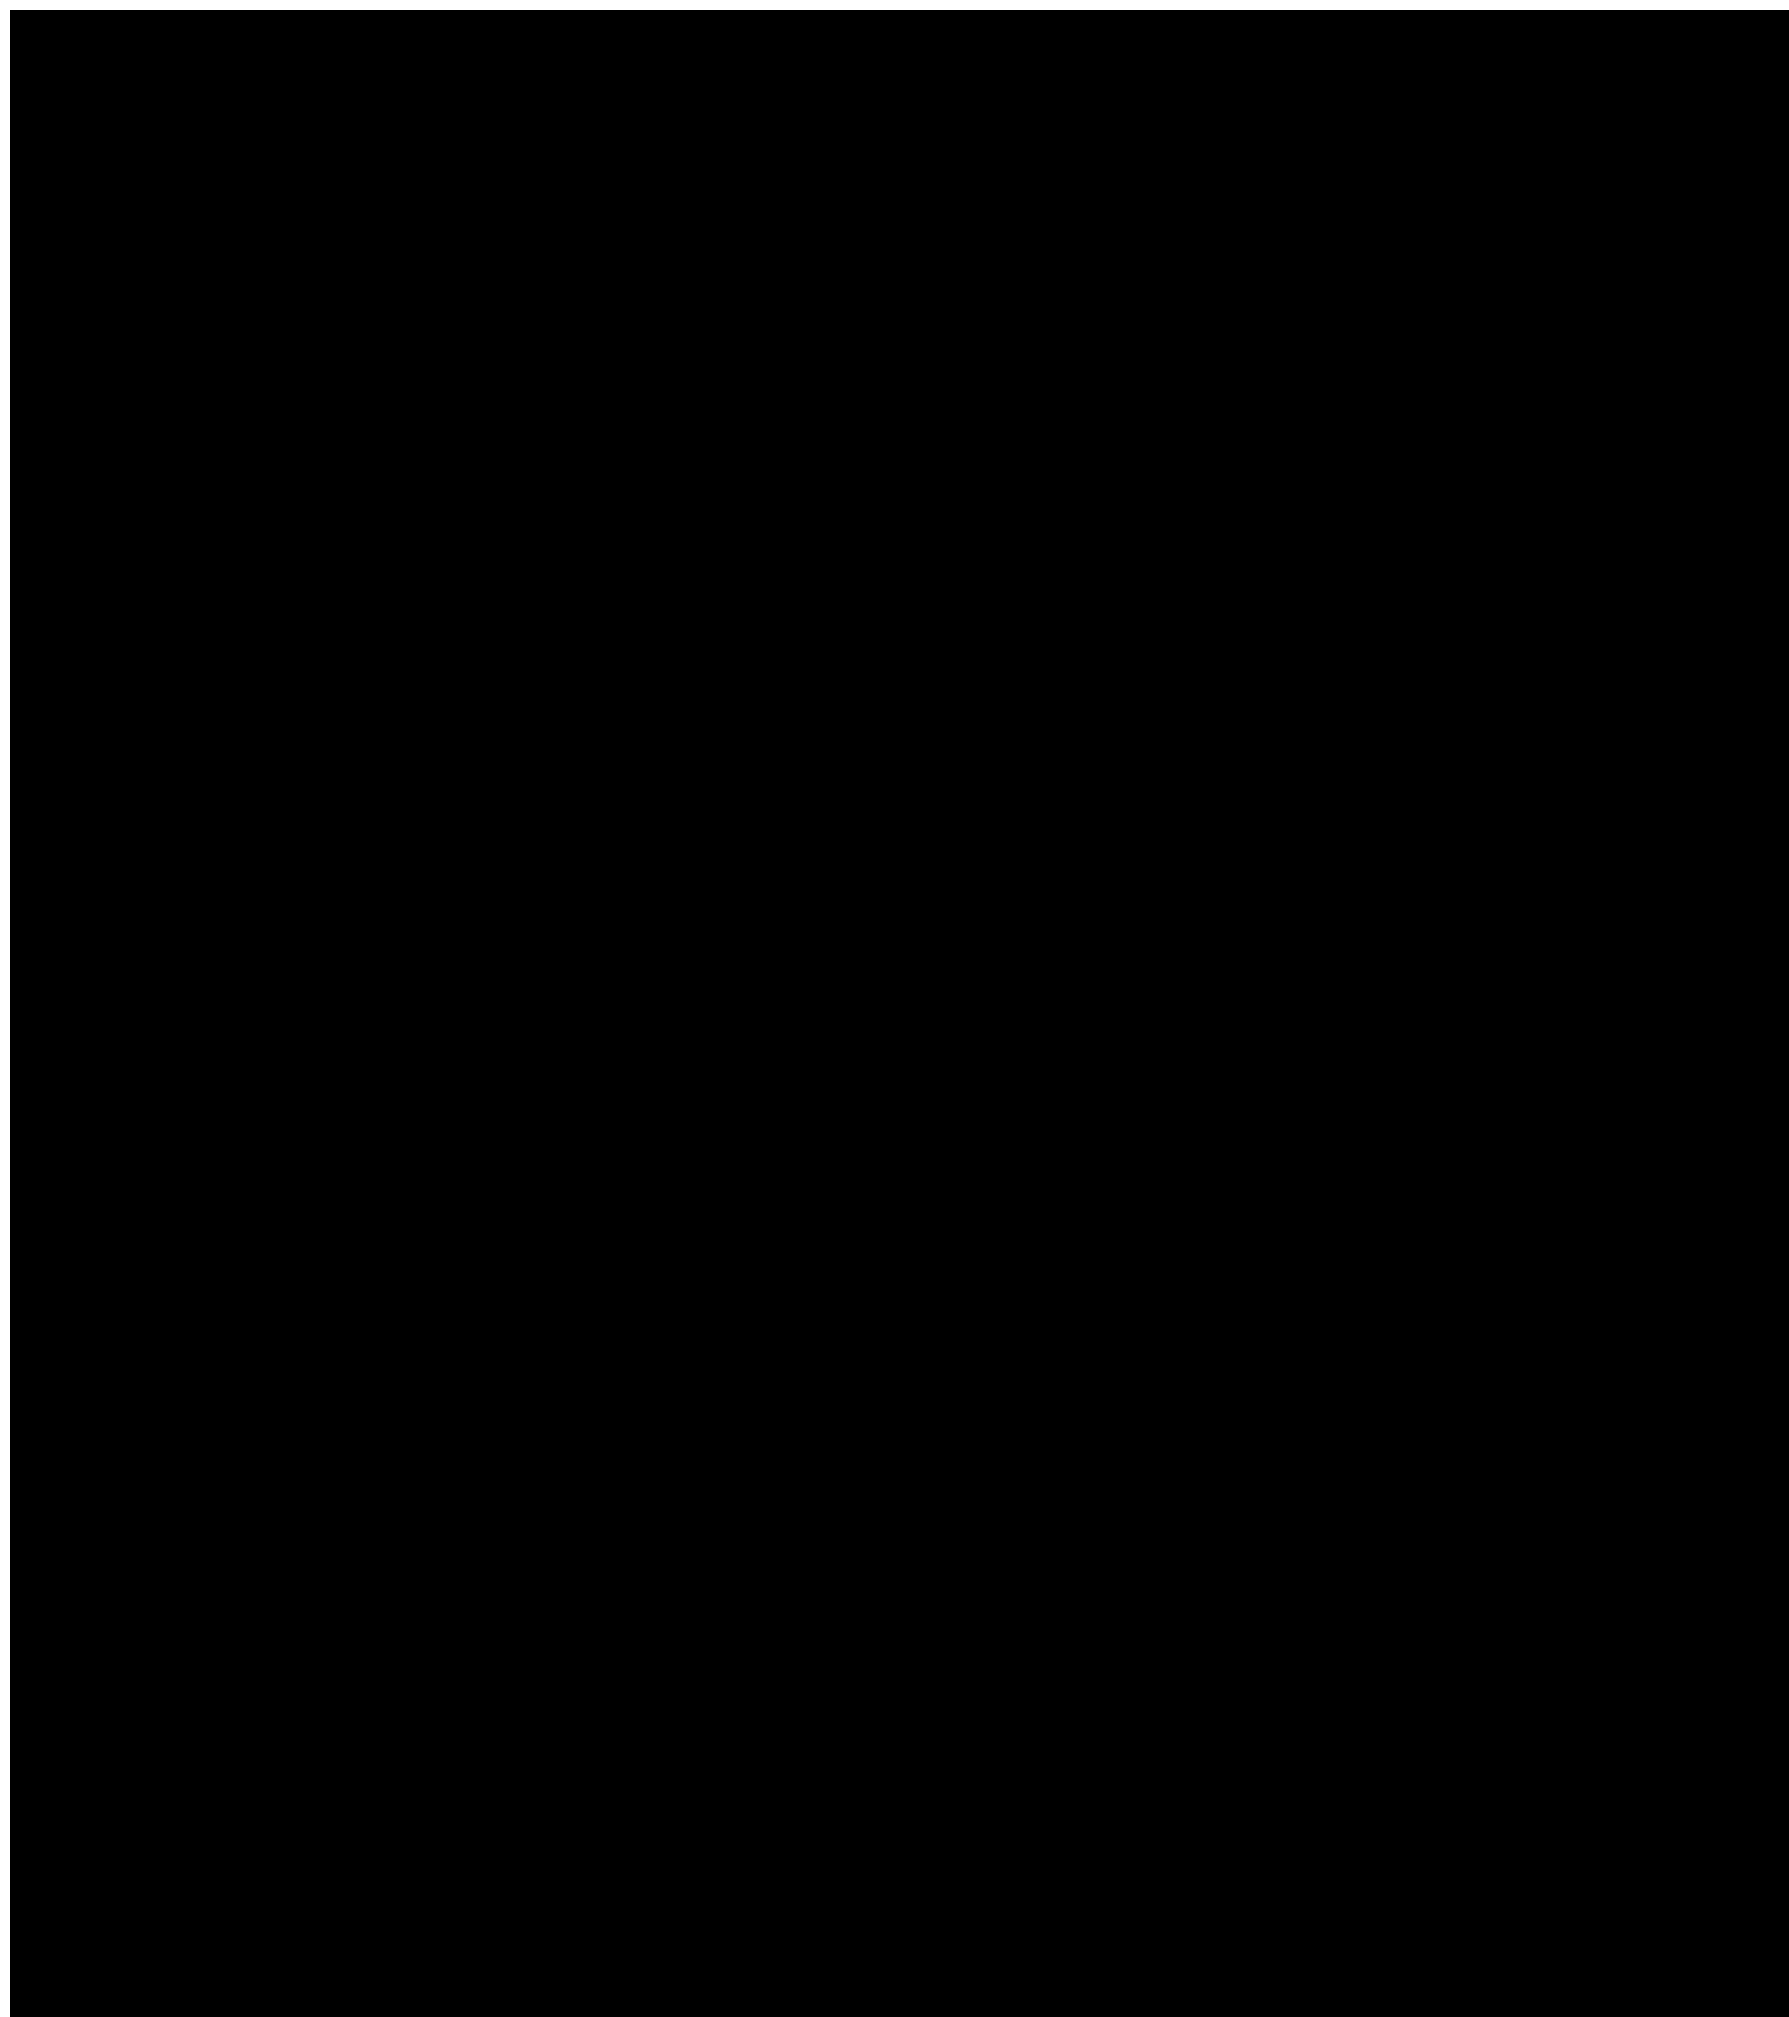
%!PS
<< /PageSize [1789 2017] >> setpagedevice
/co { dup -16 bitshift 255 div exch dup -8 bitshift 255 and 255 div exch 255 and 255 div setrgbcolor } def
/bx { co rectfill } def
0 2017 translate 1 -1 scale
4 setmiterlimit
0 0 1789 2017 16#FFFFFF bx
10 10 1779 2007 16#000000 bx
showpage
